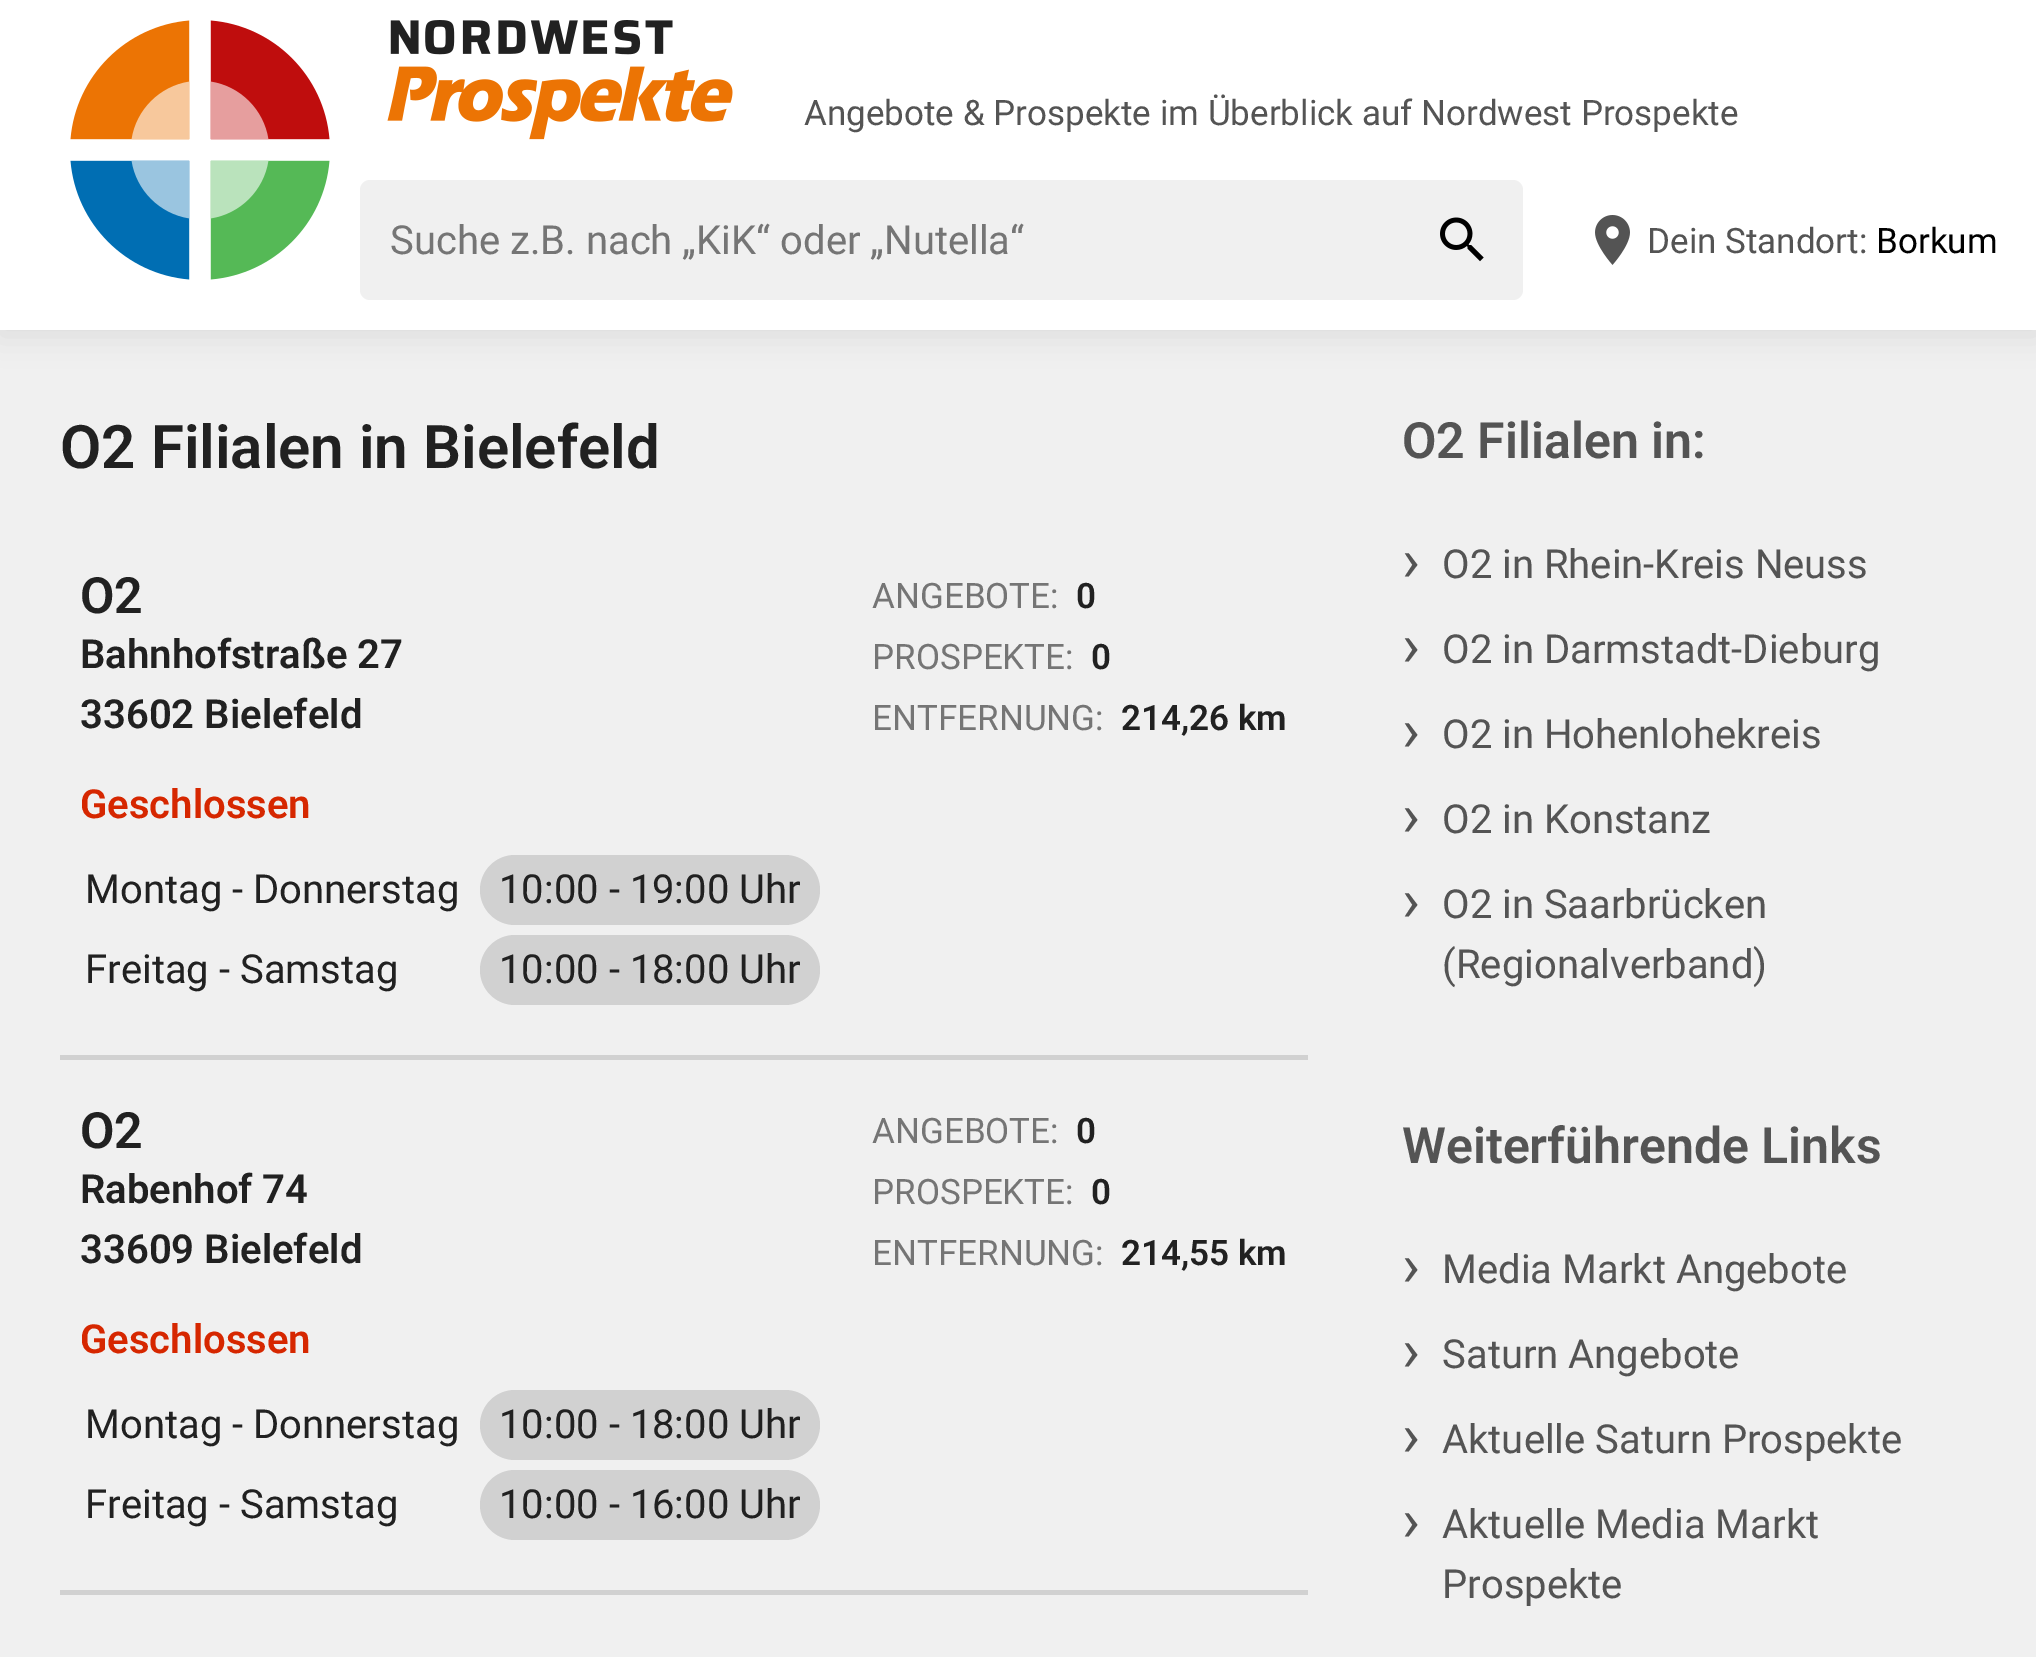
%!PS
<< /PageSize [2036 1657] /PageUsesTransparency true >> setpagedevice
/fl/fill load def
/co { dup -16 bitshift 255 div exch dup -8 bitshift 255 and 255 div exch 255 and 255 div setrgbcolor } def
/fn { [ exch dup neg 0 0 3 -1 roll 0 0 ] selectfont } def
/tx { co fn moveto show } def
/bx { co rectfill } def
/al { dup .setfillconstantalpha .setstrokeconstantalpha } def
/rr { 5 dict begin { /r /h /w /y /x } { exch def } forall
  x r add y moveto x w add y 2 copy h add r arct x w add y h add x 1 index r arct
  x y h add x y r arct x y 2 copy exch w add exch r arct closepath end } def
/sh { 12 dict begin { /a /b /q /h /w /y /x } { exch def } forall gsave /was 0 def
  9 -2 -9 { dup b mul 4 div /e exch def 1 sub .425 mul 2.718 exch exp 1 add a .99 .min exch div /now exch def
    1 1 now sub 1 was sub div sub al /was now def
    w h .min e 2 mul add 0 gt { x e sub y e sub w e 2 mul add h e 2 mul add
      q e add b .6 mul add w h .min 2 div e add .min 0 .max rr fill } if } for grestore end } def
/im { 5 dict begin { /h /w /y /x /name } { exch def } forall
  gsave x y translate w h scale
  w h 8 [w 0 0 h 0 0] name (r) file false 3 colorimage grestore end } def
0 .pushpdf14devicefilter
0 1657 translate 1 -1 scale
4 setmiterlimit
0 0 2036 1657 16#F0F0F0 bx
16#212121 co
0 5 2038 330 0 15 .1 sh
0 0 2036 330 16#FFFFFF bx
(media/1.raw) 70 20 260 260 im
(media/2.raw) 387 20 346 120 im
16#F0F0F0 co
360 180 1163 120 10 rr fl
(media/3.raw) 1440 217 44 45 im
(media/4.raw) 1595 215 35 50 im
16#D1D1D1 co
480 855 340 70 35 rr fl
480 935 340 70 35 rr fl
60 1055 1248 5 16#D1D1D1 bx
480 1390 340 70 35 rr fl
480 1470 340 70 35 rr fl
60 1590 1248 5 16#D1D1D1 bx
(Angebote & Prospekte im Überblick auf Nordwest Prospekte) 804 125 /Roboto-Regular 35 16#545454 tx
(Suche z.B. nach „KiK“ oder „Nutella“) 390 254 /Roboto-Regular 40 16#757575 tx
(Dein Standort:) 1647 253 /Roboto-Regular 35 16#545454 tx
(Borkum) 1876 253 /Roboto-Regular 35 16#000000 tx
(O2 Filialen in Bielefeld) 60 468 /Roboto-SemiBold 60 16#212121 tx
(O2) 80 613 /Roboto-SemiBold 50 16#212121 tx
(Bahnhofstraße 27) 80 668 /Roboto-SemiBold 40 16#212121 tx
(33602 Bielefeld) 80 728 /Roboto-SemiBold 40 16#212121 tx
(ANGEBOTE:) 872 608 /Roboto-Regular 35 16#757575 tx
(0) 1076 608 /Roboto-SemiBold 35 16#212121 tx
(PROSPEKTE:) 872 669 /Roboto-Regular 35 16#757575 tx
(0) 1091 669 /Roboto-SemiBold 35 16#212121 tx
(ENTFERNUNG:) 872 730 /Roboto-Regular 35 16#757575 tx
(214,26 km) 1121 730 /Roboto-SemiBold 35 16#212121 tx
(Geschlossen) 80 818 /Roboto-SemiBold 40 16#D62700 tx
(Montag - Donnerstag) 85 903 /Roboto-Regular 40 16#212121 tx
(10:00 - 19:00 Uhr) 499 903 /Roboto-Regular 40 16#212121 tx
(Freitag - Samstag) 85 983 /Roboto-Regular 40 16#212121 tx
(10:00 - 18:00 Uhr) 499 983 /Roboto-Regular 40 16#212121 tx
(O2) 80 1148 /Roboto-SemiBold 50 16#212121 tx
(Rabenhof 74) 80 1203 /Roboto-SemiBold 40 16#212121 tx
(33609 Bielefeld) 80 1263 /Roboto-SemiBold 40 16#212121 tx
(ANGEBOTE:) 872 1143 /Roboto-Regular 35 16#757575 tx
(0) 1076 1143 /Roboto-SemiBold 35 16#212121 tx
(PROSPEKTE:) 872 1204 /Roboto-Regular 35 16#757575 tx
(0) 1091 1204 /Roboto-SemiBold 35 16#212121 tx
(ENTFERNUNG:) 872 1265 /Roboto-Regular 35 16#757575 tx
(214,55 km) 1121 1265 /Roboto-SemiBold 35 16#212121 tx
(Geschlossen) 80 1353 /Roboto-SemiBold 40 16#D62700 tx
(Montag - Donnerstag) 85 1438 /Roboto-Regular 40 16#212121 tx
(10:00 - 18:00 Uhr) 499 1438 /Roboto-Regular 40 16#212121 tx
(Freitag - Samstag) 85 1518 /Roboto-Regular 40 16#212121 tx
(10:00 - 16:00 Uhr) 499 1518 /Roboto-Regular 40 16#212121 tx
(O2 Filialen in:) 1402 458 /Roboto-SemiBold 50 16#545454 tx
(›) 1402 581 /Roboto-Regular 60 16#545454 tx
(O2 in Rhein-Kreis Neuss) 1442 578 /Roboto-Regular 40 16#545454 tx
(›) 1402 666 /Roboto-Regular 60 16#545454 tx
(O2 in Darmstadt-Dieburg) 1442 663 /Roboto-Regular 40 16#545454 tx
(›) 1402 751 /Roboto-Regular 60 16#545454 tx
(O2 in Hohenlohekreis) 1442 748 /Roboto-Regular 40 16#545454 tx
(›) 1402 836 /Roboto-Regular 60 16#545454 tx
(O2 in Konstanz) 1442 833 /Roboto-Regular 40 16#545454 tx
(›) 1402 921 /Roboto-Regular 60 16#545454 tx
(O2 in Saarbrücken) 1442 918 /Roboto-Regular 40 16#545454 tx
(\(Regionalverband\)) 1442 978 /Roboto-Regular 40 16#545454 tx
(Weiterführende Links) 1402 1163 /Roboto-SemiBold 50 16#545454 tx
(›) 1402 1286 /Roboto-Regular 60 16#545454 tx
(Media Markt Angebote) 1442 1283 /Roboto-Regular 40 16#545454 tx
(›) 1402 1371 /Roboto-Regular 60 16#545454 tx
(Saturn Angebote) 1442 1368 /Roboto-Regular 40 16#545454 tx
(›) 1402 1456 /Roboto-Regular 60 16#545454 tx
(Aktuelle Saturn Prospekte) 1442 1453 /Roboto-Regular 40 16#545454 tx
(›) 1402 1541 /Roboto-Regular 60 16#545454 tx
(Aktuelle Media Markt) 1442 1538 /Roboto-Regular 40 16#545454 tx
(Prospekte) 1442 1598 /Roboto-Regular 40 16#545454 tx
.poppdf14devicefilter showpage
